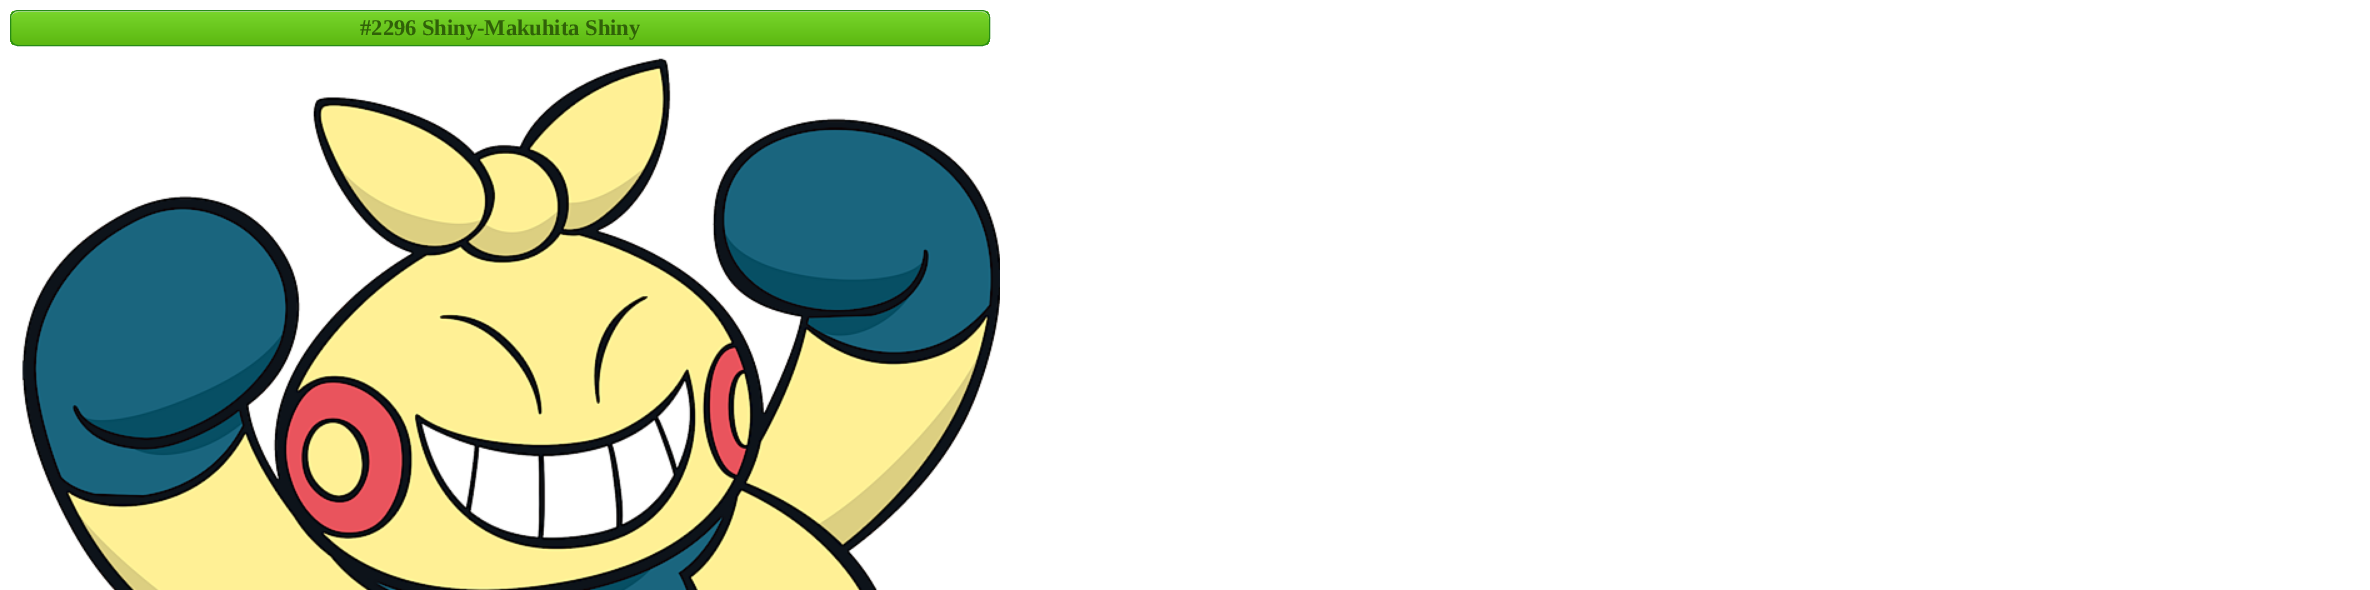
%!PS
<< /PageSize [2370 590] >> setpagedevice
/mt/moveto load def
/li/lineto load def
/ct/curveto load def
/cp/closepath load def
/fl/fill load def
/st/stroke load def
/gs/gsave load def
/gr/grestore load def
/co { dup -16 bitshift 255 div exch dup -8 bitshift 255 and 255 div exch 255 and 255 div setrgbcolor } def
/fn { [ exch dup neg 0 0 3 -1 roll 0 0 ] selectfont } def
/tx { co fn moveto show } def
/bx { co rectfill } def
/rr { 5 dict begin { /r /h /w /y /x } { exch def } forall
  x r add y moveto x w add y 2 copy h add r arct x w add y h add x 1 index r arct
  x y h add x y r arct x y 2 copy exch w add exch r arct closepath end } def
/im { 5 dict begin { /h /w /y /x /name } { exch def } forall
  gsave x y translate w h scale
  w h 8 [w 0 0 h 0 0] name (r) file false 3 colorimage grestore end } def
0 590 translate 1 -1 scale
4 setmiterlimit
0 0 2370 590 16#FFFFFF bx
gs
10 10 980 36 8 rr clip newpath
gs 10 11 mt 990 11 li 990 45 li 10 45 li cp clip newpath
<< /ShadingType 2 /ColorSpace /DeviceRGB /Coords [500 11 500 45] /Extend [true true] /Function << /FunctionType 3 /Domain [0 1] /Functions [<< /FunctionType 2 /Domain [0 1] /C0 [.467 .831 .165] /C1 [.467 .831 .165] /N 1 >> << /FunctionType 2 /Domain [0 1] /C0 [.467 .831 .165] /C1 [.361 .722 .067] /N 1 >>] /Bounds [.05] /Encode [0 1 0 1] >> >> shfill gr
gr
16#CAEFAB co
18 12 mt 982 12 li 986 12 989 15 989 19 ct 989 17 li 989 14 986 11 983 11 ct 17 11 li 14 11 11 14 11 17 ct 11 19 li 11 15 14 12 18 12 ct cp fl
16#268A16 co
10.5 10.5 979 35 7.5 rr st
(media/1.raw) 22 58 978 532 im
(#2296 Shiny-Makuhita Shiny) 360 35 /LiberationSerif-Bold 22.5 16#306108 tx
showpage
